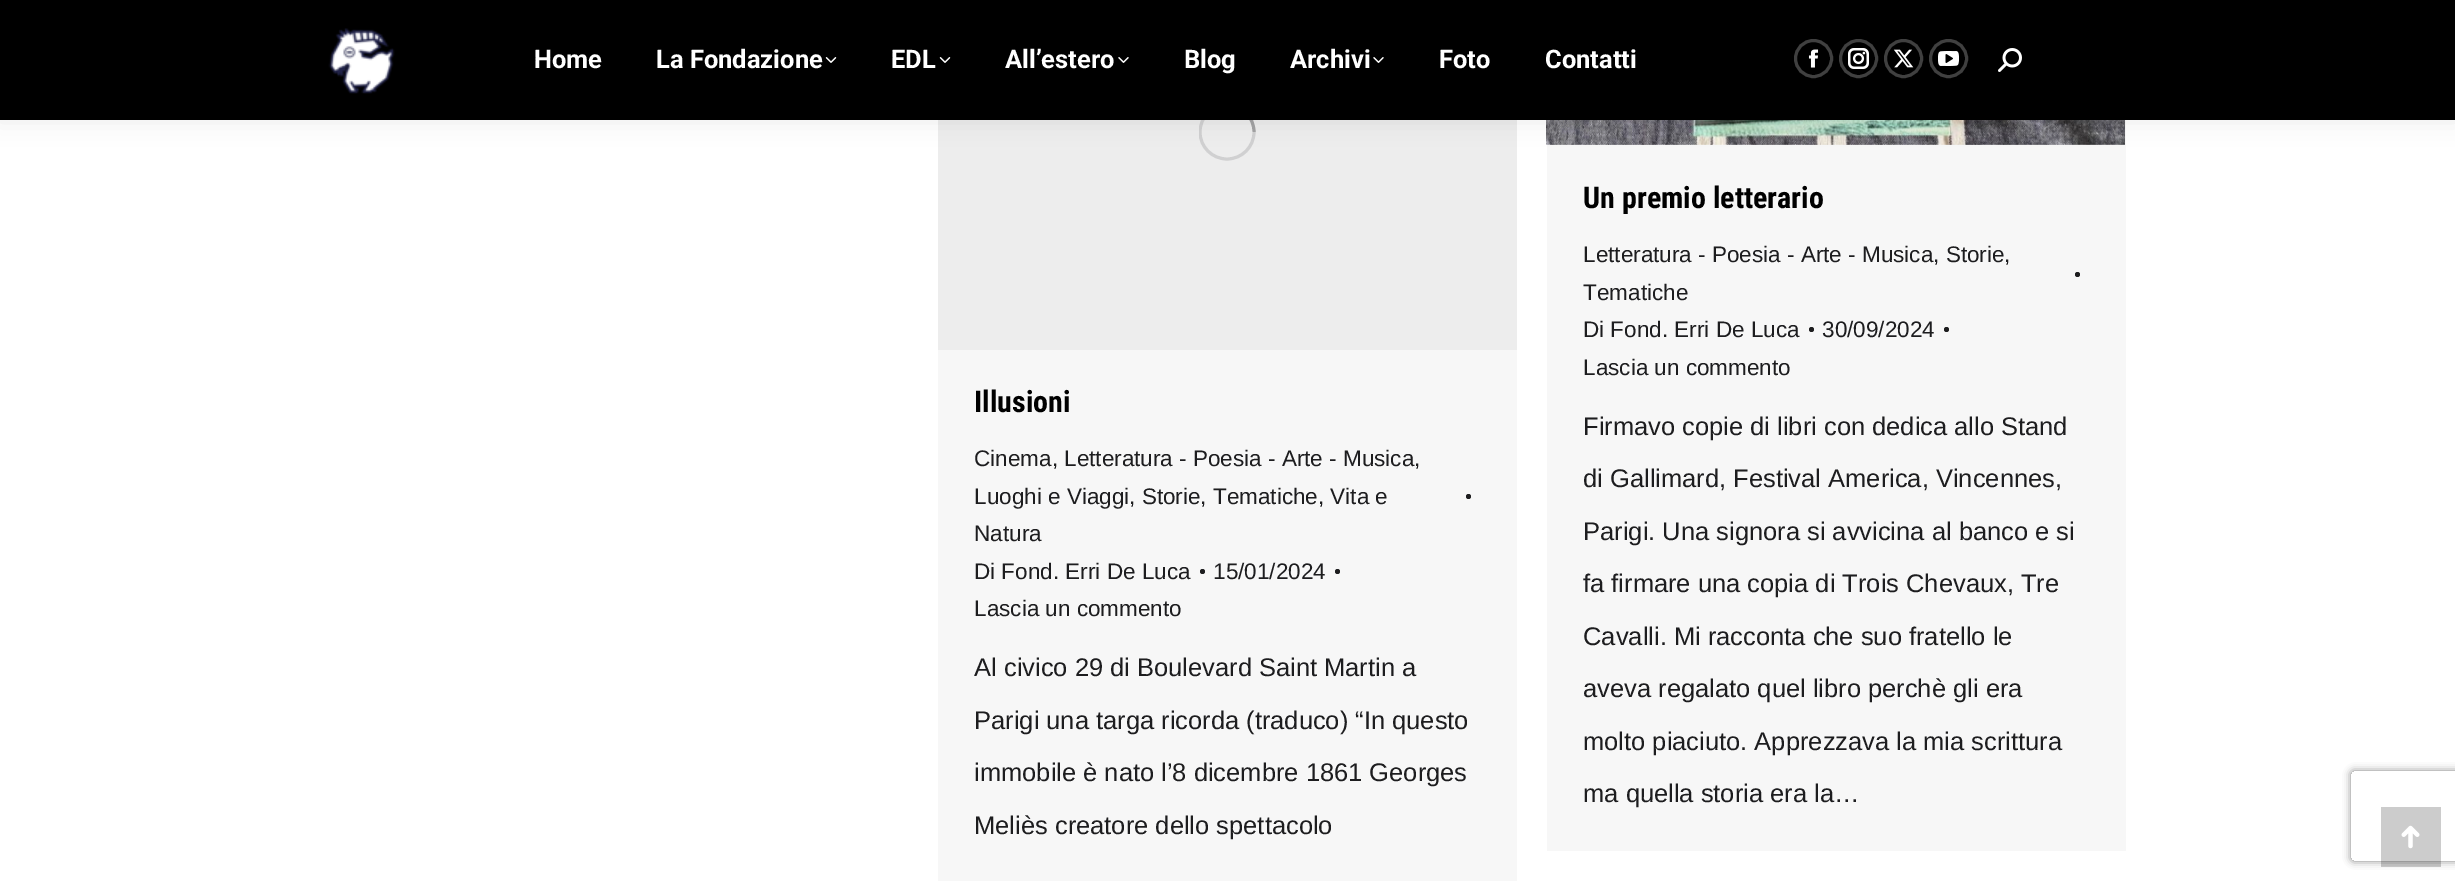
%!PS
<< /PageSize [2455 881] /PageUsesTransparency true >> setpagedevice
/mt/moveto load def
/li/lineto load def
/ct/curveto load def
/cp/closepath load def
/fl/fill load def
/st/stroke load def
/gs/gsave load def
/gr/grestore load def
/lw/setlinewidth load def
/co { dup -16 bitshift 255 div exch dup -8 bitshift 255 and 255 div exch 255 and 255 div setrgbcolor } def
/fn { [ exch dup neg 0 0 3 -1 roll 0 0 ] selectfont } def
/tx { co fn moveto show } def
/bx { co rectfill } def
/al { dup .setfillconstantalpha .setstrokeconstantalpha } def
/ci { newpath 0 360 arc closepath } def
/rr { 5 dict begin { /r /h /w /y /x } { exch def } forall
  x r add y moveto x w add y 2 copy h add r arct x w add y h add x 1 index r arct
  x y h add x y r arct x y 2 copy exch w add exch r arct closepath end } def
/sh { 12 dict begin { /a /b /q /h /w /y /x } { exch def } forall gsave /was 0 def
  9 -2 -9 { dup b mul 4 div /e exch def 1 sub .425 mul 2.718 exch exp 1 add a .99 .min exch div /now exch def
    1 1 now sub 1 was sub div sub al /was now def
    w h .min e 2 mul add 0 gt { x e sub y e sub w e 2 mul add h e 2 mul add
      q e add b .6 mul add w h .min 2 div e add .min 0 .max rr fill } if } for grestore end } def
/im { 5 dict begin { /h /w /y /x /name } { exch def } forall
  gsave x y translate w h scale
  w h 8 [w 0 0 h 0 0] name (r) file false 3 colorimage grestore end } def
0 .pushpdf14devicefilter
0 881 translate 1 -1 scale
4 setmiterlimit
0 0 2455 881 16#FFFFFF bx
938 120 579 230 16#EDEDED bx
gs
1199 104 57 57 rectclip
16#D0D0D1 co
3 lw
1227 132 27 ci st
gr
0.25 al
16#1D1D1F co
3 lw
1254 132 mt 1254 117 1242 105 1227 105 ct st
1 al
1547 120 579 731 16#F7F7F7 bx
(media/9.raw) 1546 120 579 25 im
16#000000 co
-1 -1 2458 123 0 11 .07 sh
0 0 2455 120 16#000000 bx
(media/1.raw) 328 28 67 66 im
(media/2.raw) 825 57 12 6 im
(media/2.raw) 939 57 12 6 im
(media/3.raw) 1118 57 11 6 im
(media/3.raw) 1373 57 11 6 im
16#404040 co
1813.5 58.5 18 ci st
(media/4.raw) 1808 49 11 19 im
1858.5 58.5 18 ci st
(media/5.raw) 1848 48 21 21 im
1903.5 58.5 18 ci st
(media/6.raw) 1893 49 21 19 im
1948.5 58.5 18 ci st
(media/7.raw) 1938 51 21 15 im
(media/8.raw) 1998 48 24 24 im
938 350 579 531 16#F7F7F7 bx
16#1D1D1F co
1468.5 496.5 2.5 ci fl
1202.5 571.5 2.5 ci fl
1337.5 571.5 2.5 ci fl
2077.5 274.5 2.5 ci fl
1811.5 329.5 2.5 ci fl
1946.5 329.5 2.5 ci fl
gs
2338 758 mt 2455 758 li 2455 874 li 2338 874 li cp 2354 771 mt 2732 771 li 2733.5 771 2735 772.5 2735 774 ct 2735 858 li 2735 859.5 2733.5 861 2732 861 ct 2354 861 li 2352.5 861 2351 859.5 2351 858 ct 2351 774 li 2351 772.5 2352.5 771 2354 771 ct cp eoclip newpath
16#808080 co
2351 771 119 90 3 4 1 sh
gr
0.2 al
2381 807 60 60 16#000000 bx
1 al
(media/10.raw) 2401 825 19 24 im
(Home) 534 68 /Roboto-Bold 25.5 16#FFFFFF tx
(La Fondazione) 656 68 /Roboto-Bold 25.5 16#FFFFFF tx
(EDL) 891 68 /Roboto-Bold 25.5 16#FFFFFF tx
(All’estero) 1005 68 /Roboto-Bold 25.5 16#FFFFFF tx
(Blog) 1184 68 /Roboto-Bold 25.5 16#FFFFFF tx
(Archivi) 1290 68 /Roboto-Bold 25.5 16#FFFFFF tx
(Foto) 1439 68 /Roboto-Bold 25.5 16#FFFFFF tx
(Contatti) 1545 68 /Roboto-Bold 25.5 16#FFFFFF tx
(Illusioni) 974 412 /RobotoCondensed-Bold 30 16#000000 tx
(Cinema, Letteratura - Poesia - Arte - Musica,) 974 466 /LiberationSans-Regular 22.5 16#1D1D1F tx
(Luoghi e Viaggi, Storie, Tematiche, Vita e) 974 504 /LiberationSans-Regular 22.5 16#1D1D1F tx
(Natura) 974 541 /LiberationSans-Regular 22.5 16#1D1D1F tx
(Di Fond. Erri De Luca) 974 579 /LiberationSans-Regular 22.5 16#1D1D1F tx
(15/01/2024) 1213 579 /LiberationSans-Regular 22.5 16#1D1D1F tx
(Lascia un commento) 974 616 /LiberationSans-Regular 22.5 16#1D1D1F tx
(Al civico 29 di Boulevard Saint Martin a) 974 676 /LiberationSans-Regular 25.5 16#1D1D1F tx
(Parigi una targa ricorda \(traduco\) “In questo) 974 729 /LiberationSans-Regular 25.5 16#1D1D1F tx
(immobile è nato l’8 dicembre 1861 Georges) 974 781 /LiberationSans-Regular 25.5 16#1D1D1F tx
(Meliès creatore dello spettacolo) 974 834 /LiberationSans-Regular 25.5 16#1D1D1F tx
(Un premio letterario) 1583 208 /RobotoCondensed-Bold 30 16#000000 tx
(Letteratura - Poesia - Arte - Musica, Storie,) 1583 262 /LiberationSans-Regular 22.5 16#1D1D1F tx
(Tematiche) 1583 300 /LiberationSans-Regular 22.5 16#1D1D1F tx
(Di Fond. Erri De Luca) 1583 337 /LiberationSans-Regular 22.5 16#1D1D1F tx
(30/09/2024) 1822 337 /LiberationSans-Regular 22.5 16#1D1D1F tx
(Lascia un commento) 1583 375 /LiberationSans-Regular 22.5 16#1D1D1F tx
(Firmavo copie di libri con dedica allo Stand) 1583 435 /LiberationSans-Regular 25.5 16#1D1D1F tx
(di Gallimard, Festival America, Vincennes,) 1583 487 /LiberationSans-Regular 25.5 16#1D1D1F tx
(Parigi. Una signora si avvicina al banco e si) 1583 540 /LiberationSans-Regular 25.5 16#1D1D1F tx
(fa firmare una copia di Trois Chevaux, Tre) 1583 592 /LiberationSans-Regular 25.5 16#1D1D1F tx
(Cavalli. Mi racconta che suo fratello le) 1583 645 /LiberationSans-Regular 25.5 16#1D1D1F tx
(aveva regalato quel libro perchè gli era) 1583 697 /LiberationSans-Regular 25.5 16#1D1D1F tx
(molto piaciuto. Apprezzava la mia scrittura) 1583 750 /LiberationSans-Regular 25.5 16#1D1D1F tx
(ma quella storia era la…) 1583 802 /LiberationSans-Regular 25.5 16#1D1D1F tx
.poppdf14devicefilter showpage
